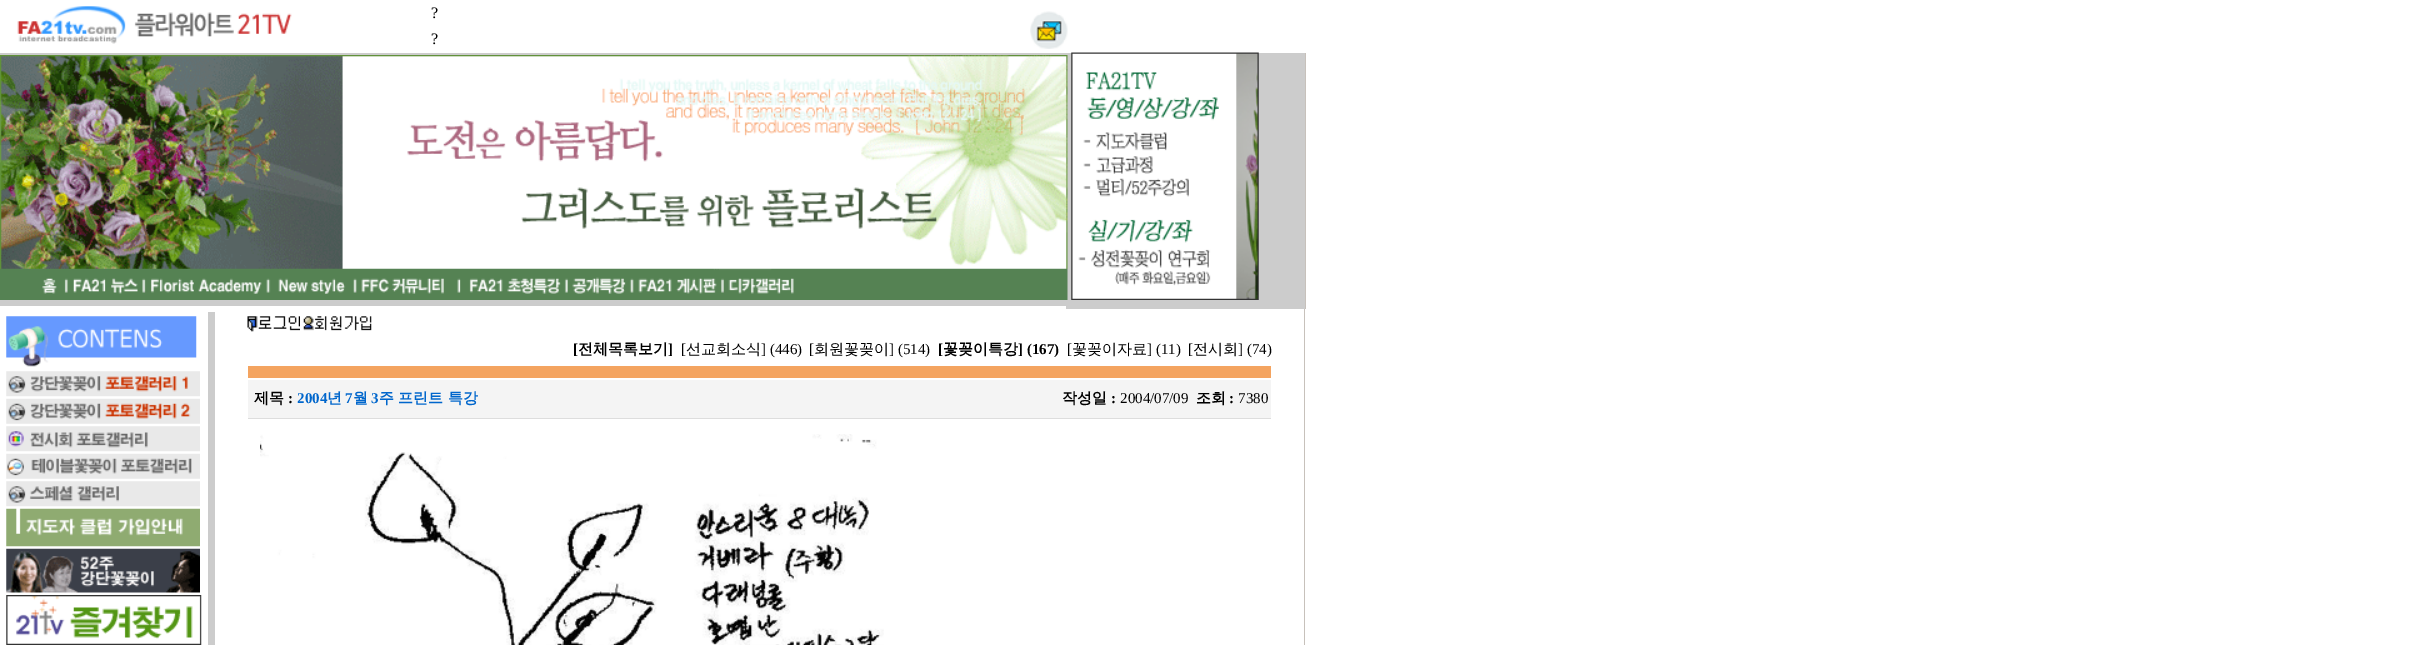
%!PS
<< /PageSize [2434 645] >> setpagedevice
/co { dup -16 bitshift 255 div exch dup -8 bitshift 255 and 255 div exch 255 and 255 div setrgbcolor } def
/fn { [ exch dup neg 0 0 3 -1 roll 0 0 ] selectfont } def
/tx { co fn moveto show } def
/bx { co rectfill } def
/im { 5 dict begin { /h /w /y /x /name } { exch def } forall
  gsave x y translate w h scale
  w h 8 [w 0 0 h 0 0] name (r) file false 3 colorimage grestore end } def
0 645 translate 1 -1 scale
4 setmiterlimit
0 0 2434 645 16#FFFFFF bx
(media/1.raw) 17 6 275 38 im
(media/2.raw) 1030 11 38 38 im
0 53 1305 253 16#CCCCCC bx
(media/3.raw) 0 55 1068 245 im
(media/4.raw) 1071 52 188 248 im
1066 306 239 3 16#CCCCCC bx
1305 53 1 256 16#C7C1BB bx
(media/5.raw) 6 316 191 51 im
(media/6.raw) 6 371 194 26 im
(media/7.raw) 6 398 194 26 im
(media/8.raw) 6 426 194 26 im
(media/9.raw) 6 453 194 26 im
(media/10.raw) 6 481 194 26 im
(media/11.raw) 6 508 194 39 im
(media/12.raw) 6 548 194 45 im
(media/13.raw) 6 595 196 50 im
208 312 7 333 16#CCCCCC bx
(media/14.raw) 247 316 53 16 im
(media/15.raw) 303 316 69 15 im
248 366 1023 12 16#F4A460 bx
248 418 1023 1 16#DDDDDD bx
248 380 1023 38 16#F4F4F4 bx
(media/16.raw) 260 434 624 211 im
1304 309 1 336 16#C7C1BB bx
(?) 431 18 /LiberationSerif-Regular 16 16#000000 tx
(?) 431 44 /LiberationSerif-Regular 16 16#000000 tx
([) 573 354 /LiberationSerif-Bold 15 16#000000 tx
(전체목록보기) 578 354 /WenQuanYiZenHei-Bold 15 16#000000 tx
(]) 668 354 /LiberationSerif-Bold 15 16#000000 tx
([) 681 354 /LiberationSerif-Regular 15 16#000000 tx
(선교회소식) 686 354 /WenQuanYiZenHei-Medium 15 16#000000 tx
(] \(446\)) 761 354 /LiberationSerif-Regular 15 16#000000 tx
([) 809 354 /LiberationSerif-Regular 15 16#000000 tx
(회원꽃꽂이) 814 354 /WenQuanYiZenHei-Medium 15 16#000000 tx
(] \(514\)) 889 354 /LiberationSerif-Regular 15 16#000000 tx
([) 938 354 /LiberationSerif-Bold 15 16#000000 tx
(꽃꽂이특강) 943 354 /WenQuanYiZenHei-Bold 15 16#000000 tx
(] \(167\)) 1018 354 /LiberationSerif-Bold 15 16#000000 tx
([) 1067 354 /LiberationSerif-Regular 15 16#000000 tx
(꽃꽂이자료) 1072 354 /WenQuanYiZenHei-Medium 15 16#000000 tx
(] \(11\)) 1147 354 /LiberationSerif-Regular 15 16#000000 tx
([) 1188 354 /LiberationSerif-Regular 15 16#000000 tx
(전시회) 1193 354 /WenQuanYiZenHei-Medium 15 16#000000 tx
(] \(74\)) 1238 354 /LiberationSerif-Regular 15 16#000000 tx
(제목) 254 403 /WenQuanYiZenHei-Bold 15 16#000000 tx
(:) 288 403 /LiberationSerif-Bold 15 16#000000 tx
(2004) 297 403 /LiberationSerif-Bold 15 16#0066CC tx
(년) 327 403 /WenQuanYiZenHei-Bold 15 16#0066CC tx
(7) 345 403 /LiberationSerif-Bold 15 16#0066CC tx
(월) 353 403 /WenQuanYiZenHei-Bold 15 16#0066CC tx
(3) 371 403 /LiberationSerif-Bold 15 16#0066CC tx
(주 프린트 특강) 379 403 /WenQuanYiZenHei-Bold 15 16#0066CC tx
(작성일) 1062 403 /WenQuanYiZenHei-Bold 15 16#000000 tx
(:) 1111 403 /LiberationSerif-Bold 15 16#000000 tx
(2004/07/09) 1120 403 /LiberationSerif-Regular 15 16#000000 tx
(조회) 1196 403 /WenQuanYiZenHei-Bold 15 16#000000 tx
(:) 1229 403 /LiberationSerif-Bold 15 16#000000 tx
(7380) 1238 403 /LiberationSerif-Regular 15 16#000000 tx
showpage
